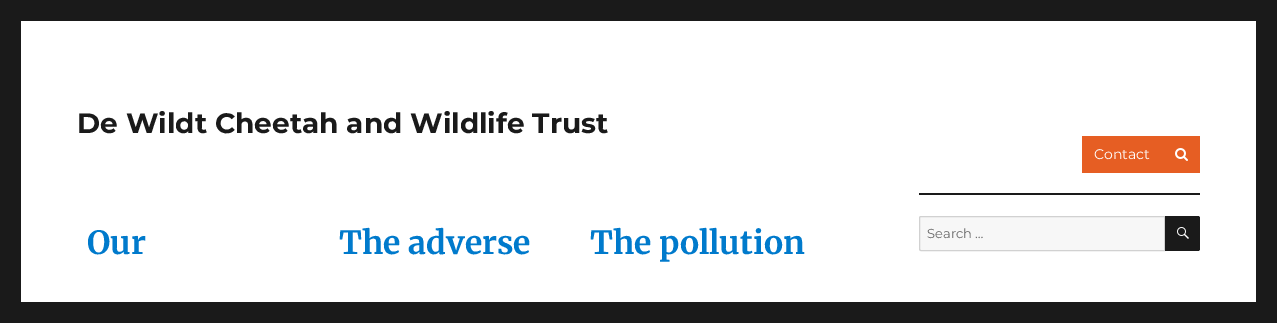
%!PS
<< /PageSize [1277 323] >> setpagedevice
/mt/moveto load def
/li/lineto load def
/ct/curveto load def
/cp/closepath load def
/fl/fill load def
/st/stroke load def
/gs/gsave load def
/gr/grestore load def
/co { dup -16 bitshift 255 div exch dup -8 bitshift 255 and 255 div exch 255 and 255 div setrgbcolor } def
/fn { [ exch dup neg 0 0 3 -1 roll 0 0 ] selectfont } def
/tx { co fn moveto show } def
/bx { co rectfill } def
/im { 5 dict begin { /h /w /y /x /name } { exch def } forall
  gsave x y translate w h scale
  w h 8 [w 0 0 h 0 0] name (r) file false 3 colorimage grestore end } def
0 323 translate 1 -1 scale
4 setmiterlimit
0 0 1277 323 16#1A1A1A bx
21 21 1235 281 16#FFFFFF bx
1082 136 118 37 16#E65E23 bx
(media/1.raw) 1175 148 13 13 im
919 193 281 2 16#1A1A1A bx
16#F7F7F7 co
921 216.5 mt 1164.5 216.5 li 1164.5 250.5 li 921 250.5 li 920 250.5 919.5 250 919.5 249 ct 919.5 218 li 919.5 217 920 216.5 921 216.5 ct cp gs fl gr
16#D1D1D1 co
st
16#1A1A1A co
1165 216 mt 1198 216 li 1199 216 1200 217 1200 218 ct 1200 249 li 1200 250 1199 251 1198 251 ct 1165 251 li cp fl
(media/2.raw) 1177 227 12 12 im
(De Wildt Cheetah and Wildlife Trust) 77 133 /Montserrat-Bold 28 16#1A1A1A tx
(Contact) 1094 159 /Montserrat-Regular 14 16#FFFFFF tx
(Our) 87 254 /Merriweather-Bold 32 16#007ACC tx
(The adverse) 339 254 /Merriweather-Bold 32 16#007ACC tx
(The pollution) 590 254 /Merriweather-Bold 32 16#007ACC tx
(Search …) 927 238 /Montserrat-Regular 13 16#686868 tx
showpage
